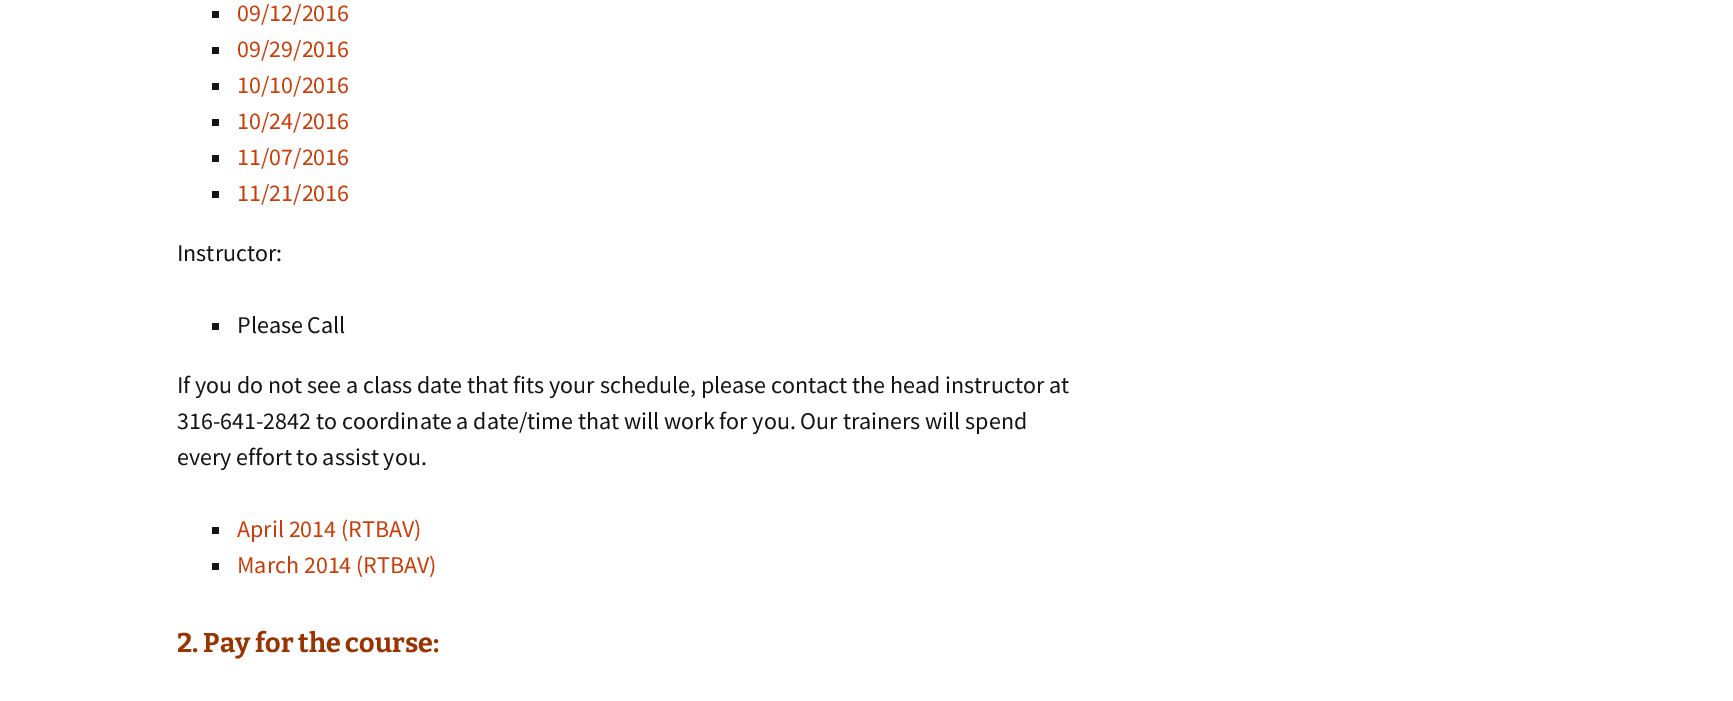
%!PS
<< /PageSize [1733 701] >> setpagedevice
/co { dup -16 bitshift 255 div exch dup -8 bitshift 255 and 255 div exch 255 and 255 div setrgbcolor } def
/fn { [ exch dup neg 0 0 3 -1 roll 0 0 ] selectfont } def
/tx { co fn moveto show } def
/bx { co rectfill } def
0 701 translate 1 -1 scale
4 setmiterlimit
0 0 1733 701 16#FFFFFF bx
212 11 7 7 16#141412 bx
212 47 7 7 16#141412 bx
212 83 7 7 16#141412 bx
212 119 7 7 16#141412 bx
212 155 7 7 16#141412 bx
212 191 7 7 16#141412 bx
212 323 7 7 16#141412 bx
212 527 7 7 16#141412 bx
212 563 7 7 16#141412 bx
(09/12/2016) 237 21 /SourceSansPro-Regular 24 16#CA3C08 tx
(09/29/2016) 237 57 /SourceSansPro-Regular 24 16#CA3C08 tx
(10/10/2016) 237 93 /SourceSansPro-Regular 24 16#CA3C08 tx
(10/24/2016) 237 129 /SourceSansPro-Regular 24 16#CA3C08 tx
(11/07/2016) 237 165 /SourceSansPro-Regular 24 16#CA3C08 tx
(11/21/2016) 237 201 /SourceSansPro-Regular 24 16#CA3C08 tx
(Instructor:) 177 261 /SourceSansPro-Regular 24 16#141412 tx
(Please Call) 237 333 /SourceSansPro-Regular 24 16#141412 tx
(If you do not see a class date that fits your schedule, please contact the head instructor at) 177 393 /SourceSansPro-Regular 24 16#141412 tx
(316-641-2842 to coordinate a date/time that will work for you. Our trainers will spend) 177 429 /SourceSansPro-Regular 24 16#141412 tx
(every effort to assist you.) 177 465 /SourceSansPro-Regular 24 16#141412 tx
(April 2014 \(RTBAV\)) 237 537 /SourceSansPro-Regular 24 16#CA3C08 tx
(March 2014 \(RTBAV\)) 237 573 /SourceSansPro-Regular 24 16#CA3C08 tx
(2. Pay for the course:) 177 652 /Bitter-Thin 27 16#993300 tx
showpage
